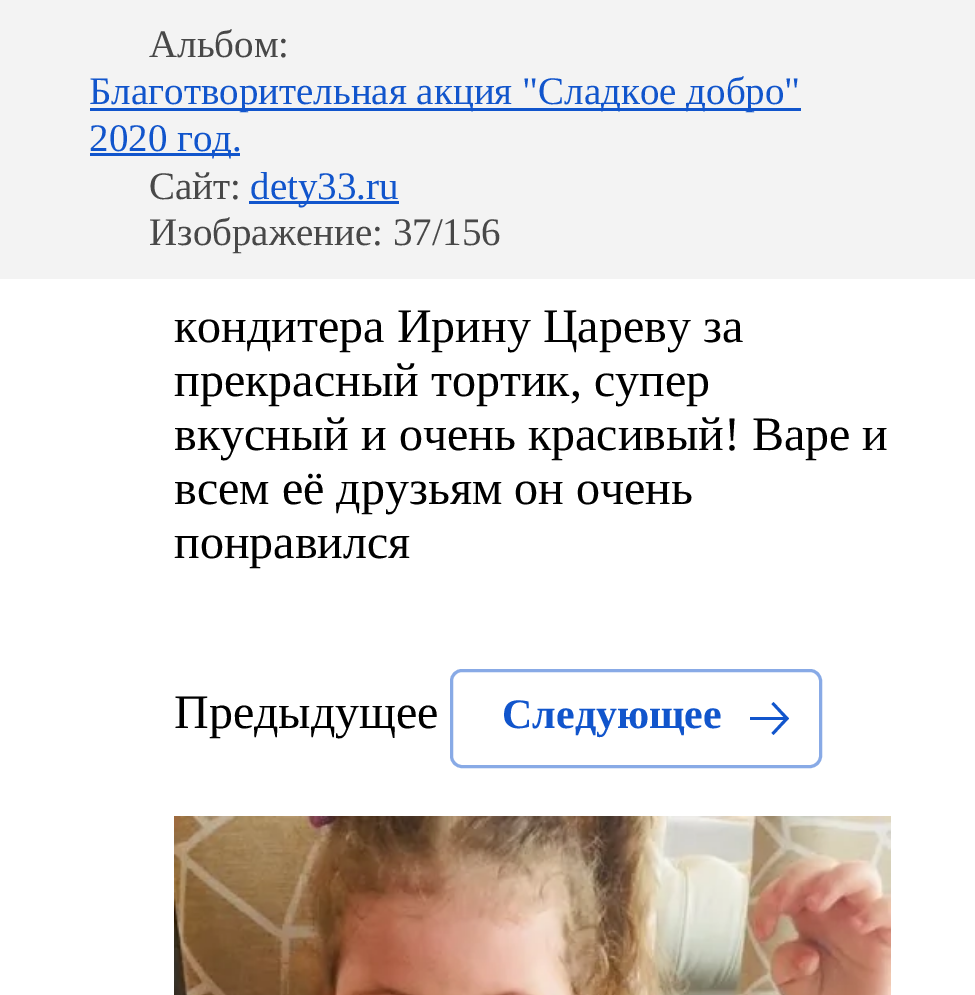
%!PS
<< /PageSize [975 995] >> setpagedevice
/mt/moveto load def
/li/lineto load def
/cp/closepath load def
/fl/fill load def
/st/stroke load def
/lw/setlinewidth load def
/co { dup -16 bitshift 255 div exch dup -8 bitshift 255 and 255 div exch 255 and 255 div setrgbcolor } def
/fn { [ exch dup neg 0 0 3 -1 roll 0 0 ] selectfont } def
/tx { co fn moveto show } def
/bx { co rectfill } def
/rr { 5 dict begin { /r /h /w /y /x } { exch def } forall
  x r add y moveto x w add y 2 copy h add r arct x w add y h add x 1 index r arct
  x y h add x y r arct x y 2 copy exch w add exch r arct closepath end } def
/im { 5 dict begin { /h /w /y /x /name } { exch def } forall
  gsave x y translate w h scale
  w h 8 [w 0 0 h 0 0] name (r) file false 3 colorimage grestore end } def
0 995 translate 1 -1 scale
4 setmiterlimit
0 0 975 995 16#FFFFFF bx
0 0 975 279 16#F3F3F3 bx
90 108 711 3 16#1155CC bx
90 153 150 3 16#1155CC bx
249 201 150 3 16#1155CC bx
16#88AAE6 co
3 lw
451.5 670.5 369 96 10.5 rr st
16#1155CC co
771.5 704 mt 773.5 702 li 789 718.5 li 773.5 735 li 771.5 733 li 783.5 720 li 750 720 li 750 717 li 783.5 717 li cp fl
(media/1.raw) 174 816 717 179 im
(Альбом:) 149 57 /LiberationSerif-Regular 39 16#484848 tx
(Благотворительная акция "Сладкое добро") 89 104 /LiberationSerif-Regular 39 16#1155CC tx
(2020 год.) 89 151 /LiberationSerif-Regular 39 16#1155CC tx
(Сайт:) 149 199 /LiberationSerif-Regular 39 16#484848 tx
(dety33.ru) 250 199 /LiberationSerif-Regular 39 16#1155CC tx
(Изображение: 37/156) 149 245 /LiberationSerif-Regular 39 16#484848 tx
(кондитера Ирину Цареву за) 174 342 /LiberationSerif-Regular 48 16#000000 tx
(прекрасный тортик, супер) 174 396 /LiberationSerif-Regular 48 16#000000 tx
(вкусный и очень красивый! Варе и) 174 450 /LiberationSerif-Regular 48 16#000000 tx
(всем её друзьям он очень) 174 504 /LiberationSerif-Regular 48 16#000000 tx
(понравился) 174 558 /LiberationSerif-Regular 48 16#000000 tx
(Предыдущее) 174 728 /LiberationSerif-Regular 48 16#000000 tx
(Следующее) 502 728 /LiberationSerif-Bold 42 16#1155CC tx
showpage
